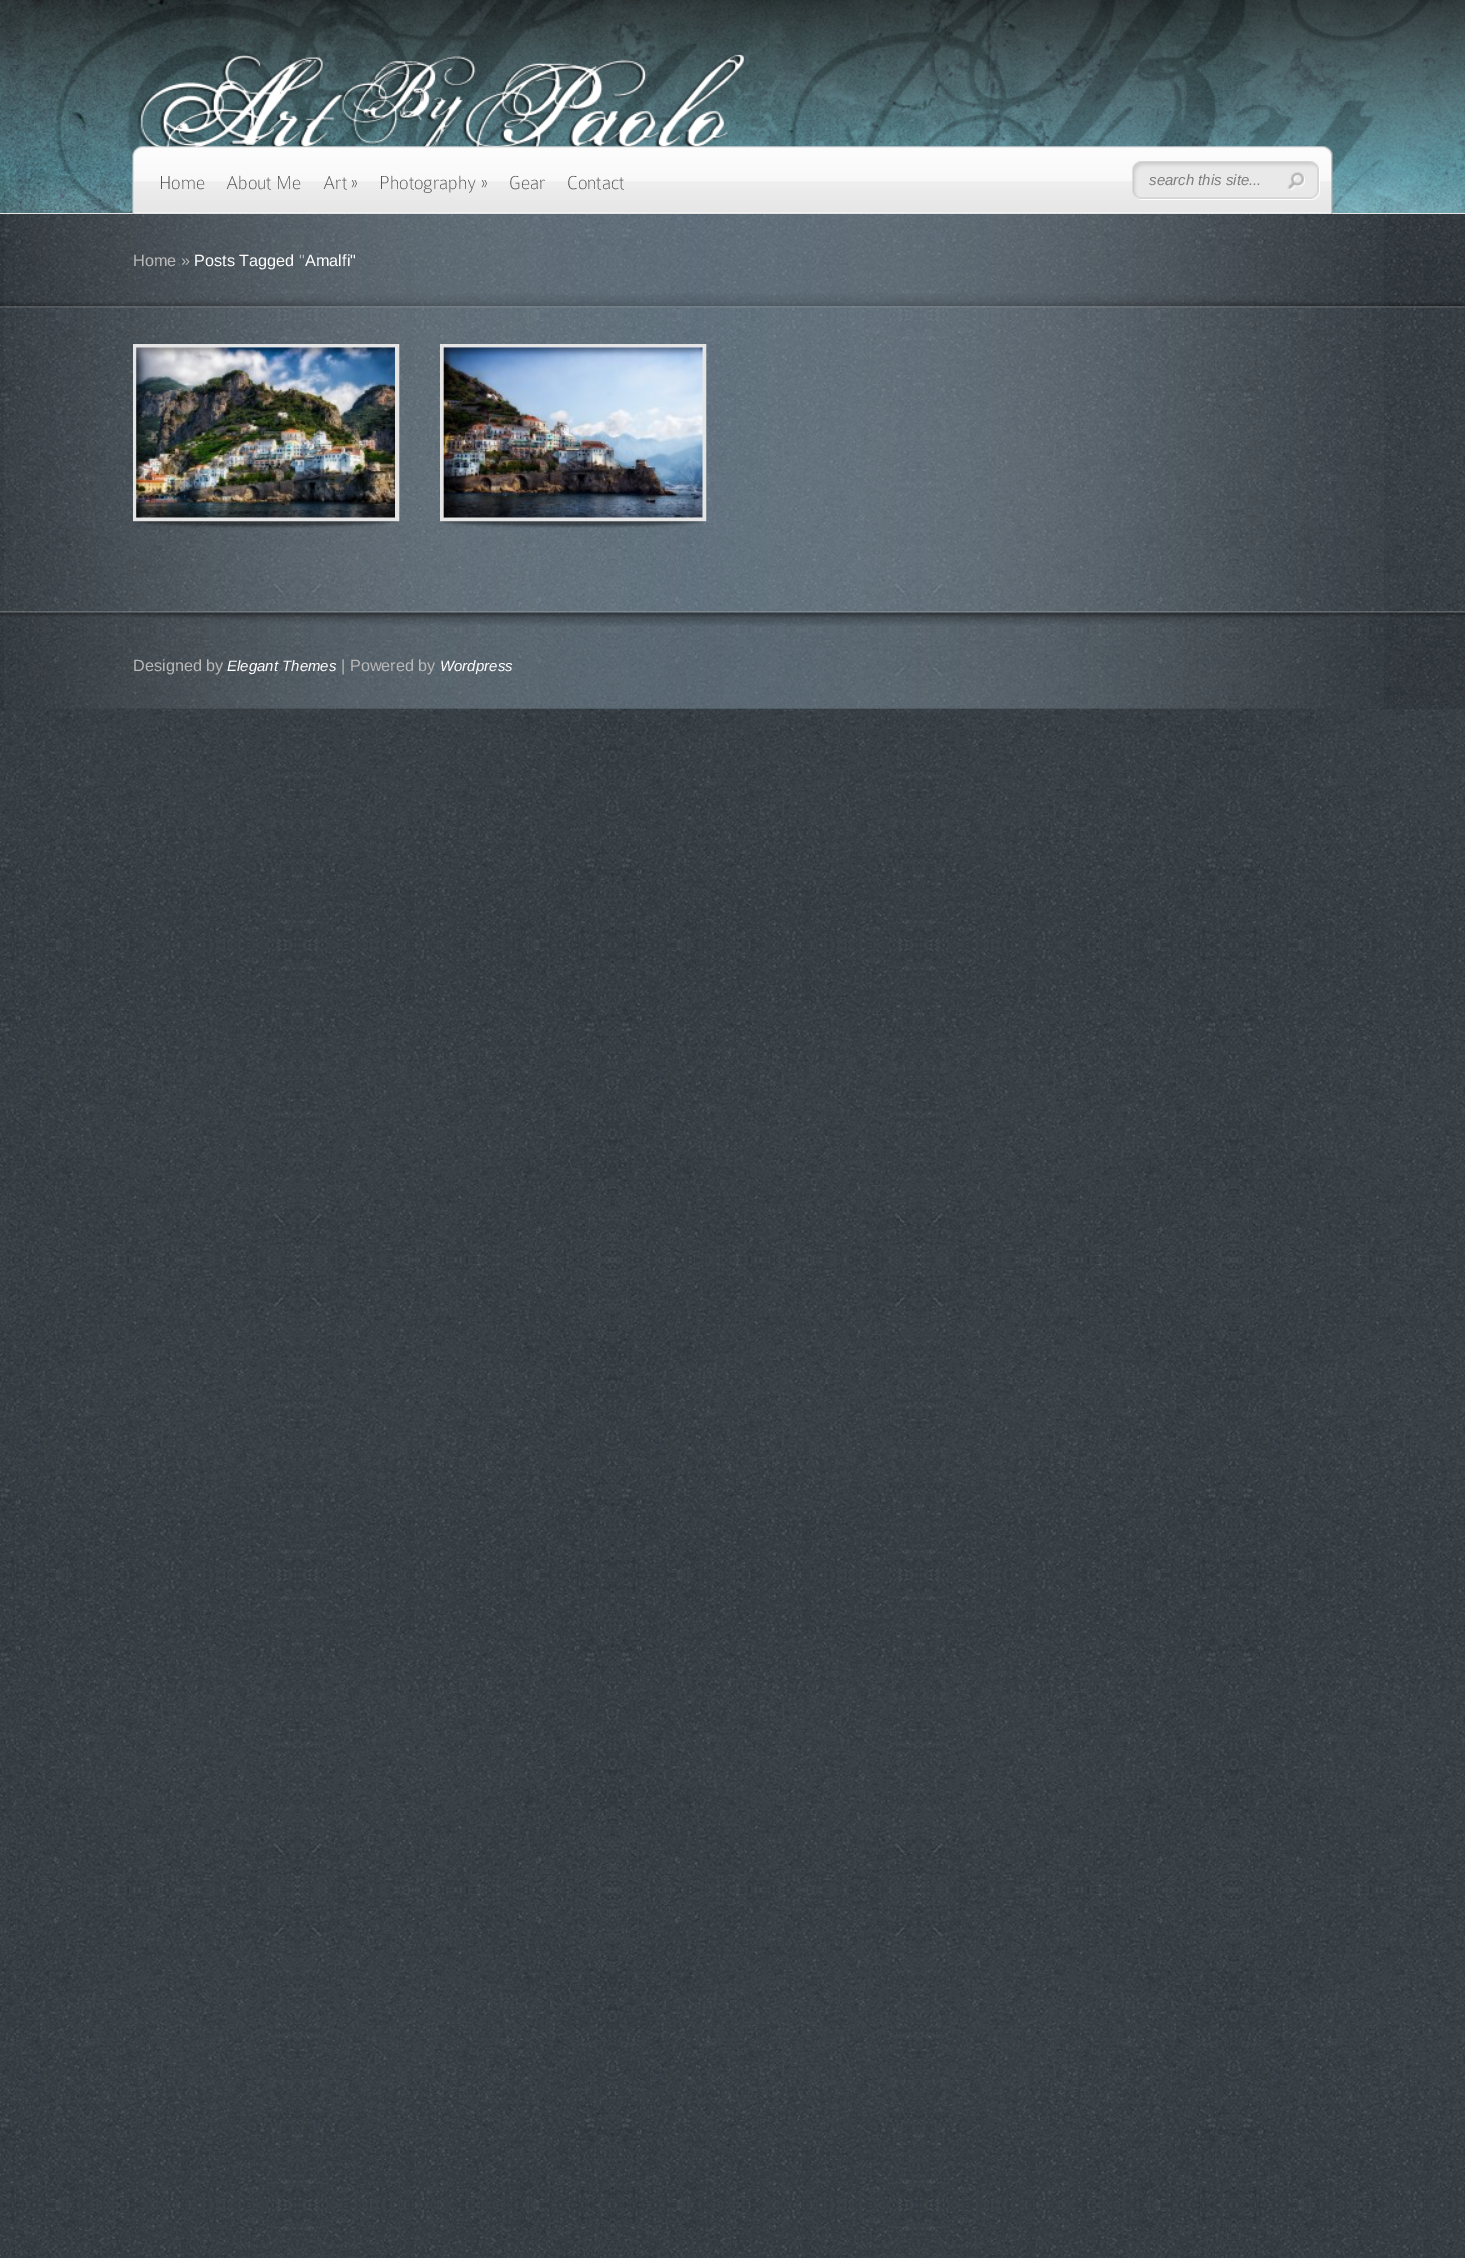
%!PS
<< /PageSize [1465 2258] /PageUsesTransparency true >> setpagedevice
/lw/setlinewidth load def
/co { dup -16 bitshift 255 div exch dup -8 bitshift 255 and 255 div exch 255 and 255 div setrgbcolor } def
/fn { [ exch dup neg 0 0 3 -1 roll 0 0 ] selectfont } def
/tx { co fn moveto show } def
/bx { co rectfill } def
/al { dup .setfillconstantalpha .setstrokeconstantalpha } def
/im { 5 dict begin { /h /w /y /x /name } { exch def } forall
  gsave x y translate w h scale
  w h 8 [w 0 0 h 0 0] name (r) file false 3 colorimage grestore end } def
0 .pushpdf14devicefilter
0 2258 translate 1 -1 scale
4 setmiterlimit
0 0 1465 2258 16#FFFFFF bx
(media/1.raw) 0 214 1465 2044 im
(media/2.raw) 0 0 1465 213 im
(media/3.raw) 137 54 607 93 im
(media/4.raw) 132 146 1201 68 im
(media/5.raw) 1132 161 188 39 im
(media/6.raw) 1287 172 18 18 im
(media/7.raw) 0 302 1465 6 im
(media/8.raw) 0 293 1465 15 im
0.09 al
0 213 1465 95 16#000000 bx
1 al
(media/9.raw) 4 214 1380 94 im
(media/10.raw) 4 307 1380 402 im
(media/11.raw) 133 521 265 7 im
16#E5E5E5 co
4 lw
135 346 262 173 rectstroke
(media/12.raw) 136 347 259 171 im
(media/13.raw) 136 347 259 171 im
(media/14.raw) 440 521 266 7 im
442 346 262 173 rectstroke
(media/15.raw) 443 347 260 171 im
(media/16.raw) 443 347 260 171 im
0.09 al
0 611 1465 98 16#000000 bx
1 al
(media/17.raw) 0 611 1465 6 im
(media/18.raw) 0 611 1465 15 im
(Home) 159 189 /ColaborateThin-Thin 20 16#535353 tx
(About Me) 226 189 /ColaborateThin-Thin 20 16#535353 tx
(Art ») 323 189 /ColaborateThin-Thin 20 16#535353 tx
(Photography ») 379 189 /ColaborateThin-Thin 20 16#535353 tx
(Gear) 509 189 /ColaborateThin-Thin 20 16#535353 tx
(Contact) 567 189 /ColaborateThin-Thin 20 16#535353 tx
(search this site...) 1149 185 /LiberationSans-Italic 15 16#7D7D7D tx
(Home ») 133 266 /LiberationSans-Regular 16.25 16#B9B9B9 tx
(Posts Tagged) 194 266 /LiberationSans-Regular 16.25 16#FFFFFF tx
(") 299 266 /LiberationSans-Regular 16.25 16#B9B9B9 tx
(Amalfi") 305 266 /LiberationSans-Regular 16.25 16#FFFFFF tx
(Designed by) 133 671 /LiberationSans-Regular 16.25 16#B9B9B9 tx
(Elegant Themes) 227 671 /LiberationSans-Italic 15 16#FFFFFF tx
(| Powered by) 341 671 /LiberationSans-Regular 16.25 16#B9B9B9 tx
(Wordpress) 440 671 /LiberationSans-Italic 15 16#FFFFFF tx
.poppdf14devicefilter showpage
